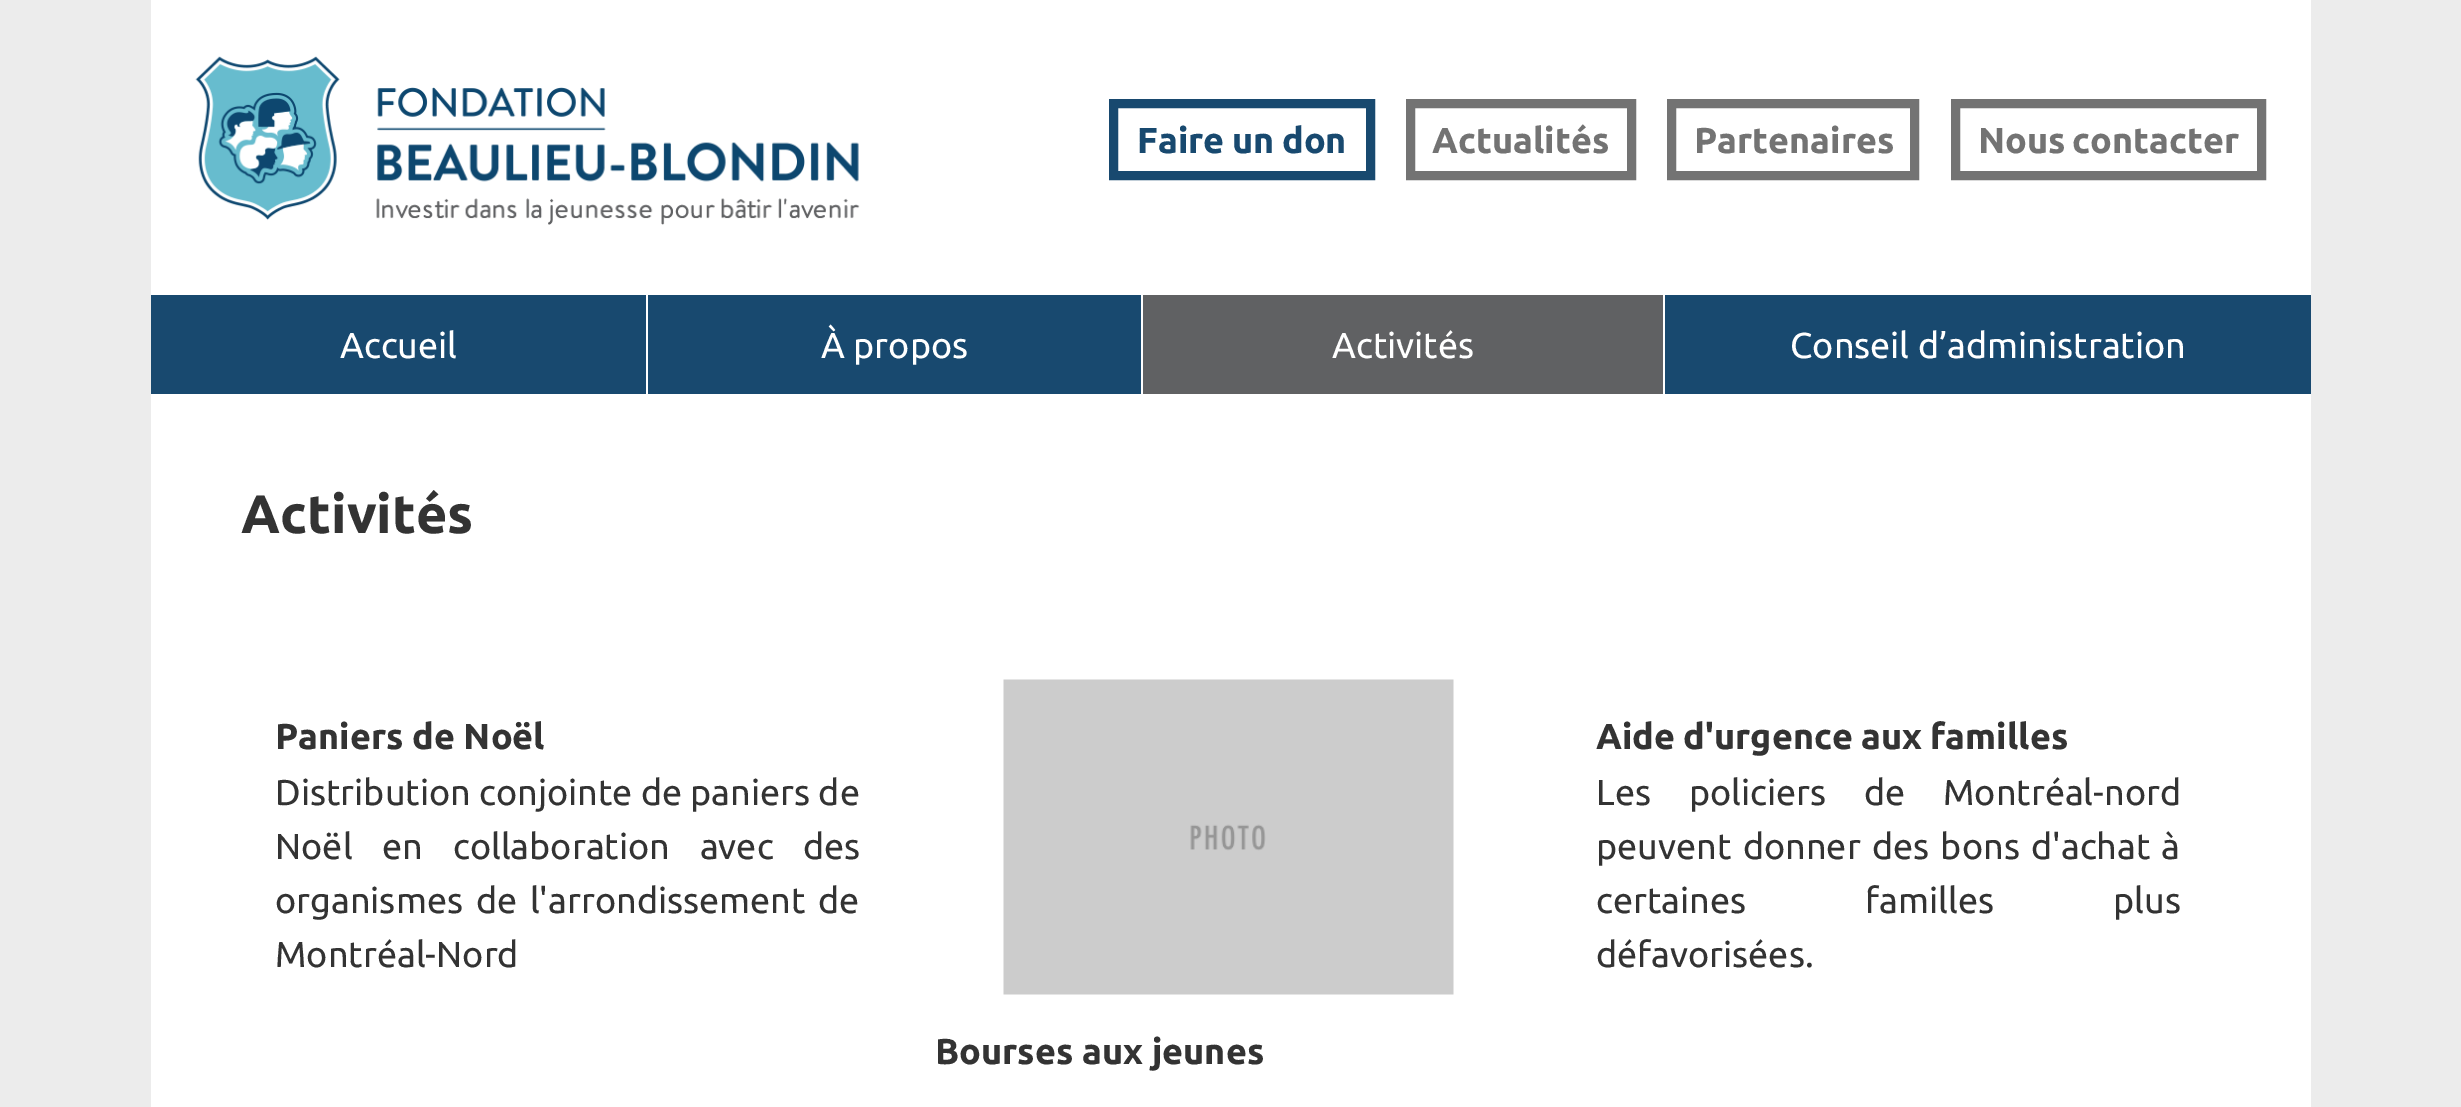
%!PS
<< /PageSize [2461 1107] >> setpagedevice
/mt/moveto load def
/lw/setlinewidth load def
/co { dup -16 bitshift 255 div exch dup -8 bitshift 255 and 255 div exch 255 and 255 div setrgbcolor } def
/fn { [ exch dup neg 0 0 3 -1 roll 0 0 ] selectfont } def
/tx { co fn moveto show } def
/bx { co rectfill } def
/im { 5 dict begin { /h /w /y /x /name } { exch def } forall
  gsave x y translate w h scale
  w h 8 [w 0 0 h 0 0] name (r) file false 3 colorimage grestore end } def
0 1107 translate 1 -1 scale
4 setmiterlimit
0 0 2461 1107 16#ECECEC bx
151 0 2160 1107 16#FFFFFF bx
(media/1.raw) 195 56 665 169 im
16#18496F co
9 lw
1113.5 103.5 257 72 rectstroke
16#737373 co
1410.5 103.5 221 72 rectstroke
1671.5 103.5 243 72 rectstroke
1955.5 103.5 306 72 rectstroke
151 295 495 99 16#18496F bx
648 295 493 99 16#18496F bx
1143 295 520 99 16#606163 bx
1665 295 646 99 16#18496F bx
(media/2.raw) 1003 679 451 316 im
/Ubuntu-Bold 36 fn
1137 153 mt -1 0 32 (Faire un don) widthshow
(Actualités) 1432 153 /Ubuntu-Bold 36 16#737373 tx
(Partenaires) 1694 153 /Ubuntu-Bold 36 16#737373 tx
1978 153 mt -2 0 32 (Nous contacter) widthshow
(Accueil) 340 358 /Ubuntu-Regular 36 16#FFFFFF tx
(À propos) 821 358 /Ubuntu-Regular 36 16#FFFFFF tx
(Activités) 1332 358 /Ubuntu-Regular 36 16#FFFFFF tx
(Conseil d’administration) 1790 358 /Ubuntu-Regular 36 16#FFFFFF tx
(Activités) 241 533 /Ubuntu-Bold 54 16#333333 tx
(Paniers de Noël) 275 749 /Ubuntu-Bold 36 16#333333 tx
(Distribution conjointe de paniers de) 275 805 /Ubuntu-Regular 36 16#333333 tx
275 859 mt 21.5 0 32 (Noël en collaboration avec des) widthshow
275 913 mt 4.5 0 32 (organismes de l'arrondissement de) widthshow
(Montréal-Nord) 275 967 /Ubuntu-Regular 36 16#333333 tx
/Ubuntu-Bold 36 fn
1596 749 mt -.5 0 32 (Aide d'urgence aux familles) widthshow
/Ubuntu-Regular 36 fn
1596 805 mt 29.5 0 32 (Les policiers de Montréal-nord) widthshow
1596 859 mt 3 0 32 (peuvent donner des bons d'achat à) widthshow
1596 913 mt 111 0 32 (certaines familles plus) widthshow
(défavorisées.) 1596 967 /Ubuntu-Regular 36 16#333333 tx
(Bourses aux jeunes) 935 1064 /Ubuntu-Bold 36 16#333333 tx
showpage
